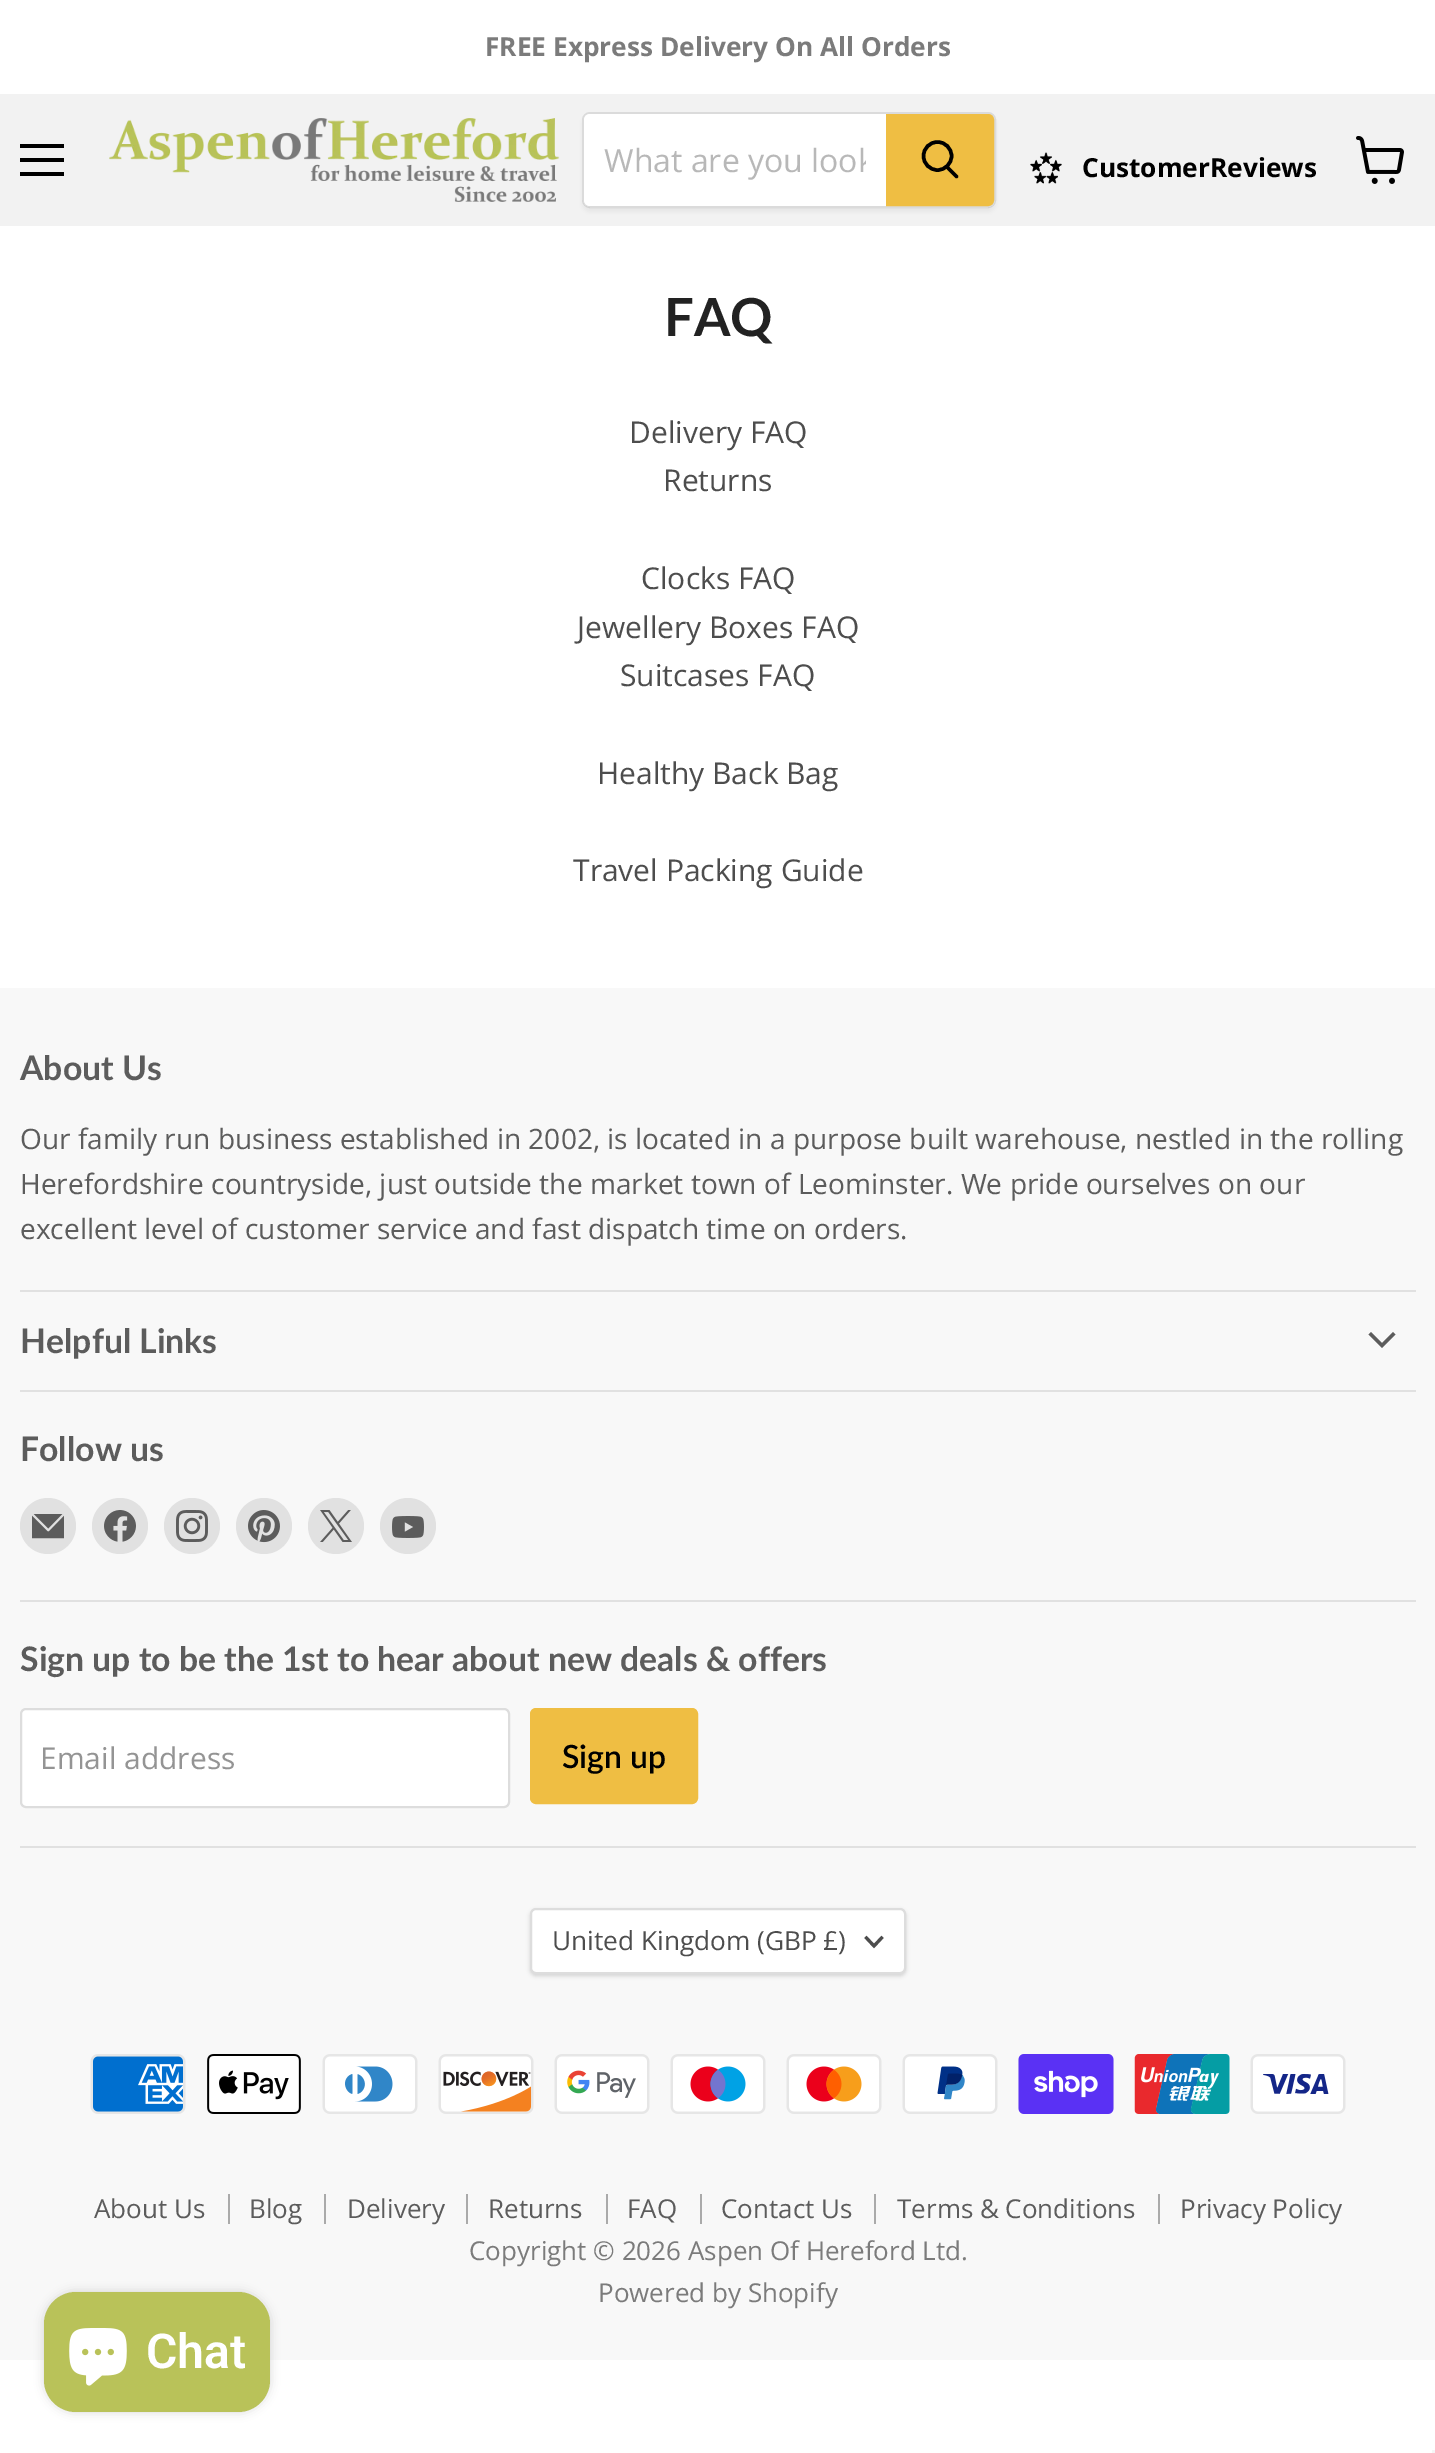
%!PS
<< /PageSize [1435 2453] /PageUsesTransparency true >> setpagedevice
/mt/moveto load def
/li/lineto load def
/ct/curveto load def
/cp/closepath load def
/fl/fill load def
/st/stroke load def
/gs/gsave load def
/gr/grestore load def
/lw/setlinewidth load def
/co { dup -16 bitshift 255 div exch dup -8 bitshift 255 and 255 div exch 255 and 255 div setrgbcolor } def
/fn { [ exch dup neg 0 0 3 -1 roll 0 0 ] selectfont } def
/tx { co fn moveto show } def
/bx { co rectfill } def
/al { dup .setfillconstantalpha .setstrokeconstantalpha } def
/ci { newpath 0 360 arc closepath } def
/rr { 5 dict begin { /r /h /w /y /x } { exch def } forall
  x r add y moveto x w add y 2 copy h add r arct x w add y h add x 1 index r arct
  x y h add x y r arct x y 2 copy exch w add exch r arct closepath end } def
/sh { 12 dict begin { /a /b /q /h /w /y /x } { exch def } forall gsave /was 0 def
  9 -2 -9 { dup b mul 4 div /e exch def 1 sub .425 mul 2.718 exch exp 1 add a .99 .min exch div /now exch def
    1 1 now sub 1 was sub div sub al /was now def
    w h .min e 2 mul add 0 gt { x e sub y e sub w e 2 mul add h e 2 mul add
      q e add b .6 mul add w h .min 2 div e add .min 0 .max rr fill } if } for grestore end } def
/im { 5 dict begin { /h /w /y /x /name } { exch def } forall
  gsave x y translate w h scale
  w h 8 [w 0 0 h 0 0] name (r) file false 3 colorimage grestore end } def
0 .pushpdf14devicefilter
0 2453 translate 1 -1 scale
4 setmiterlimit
0 0 1435 2453 16#FFFFFF bx
0 94 1435 132 16#F2F2F2 bx
20 144 44 4 16#000000 bx
20 158 44 4 16#000000 bx
20 172 44 4 16#000000 bx
(media/1.raw) 109 118 451 84 im
gs
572 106 mt 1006 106 li 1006 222 li 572 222 li cp 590 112 mt 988 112 li 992.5 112 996 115.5 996 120 ct 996 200 li 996 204.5 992.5 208 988 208 ct 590 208 li 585.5 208 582 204.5 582 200 ct 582 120 li 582 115.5 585.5 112 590 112 ct cp eoclip newpath
16#808080 co
582 116 414 96 8 3 .11 sh
gr
0.2 al
16#808080 co
2 lw
583 113 412 94 7 rr st
1 al
16#FFFFFF co
590 114 mt 886 114 li 886 206 li 590 206 li 586.5 206 584 203.5 584 200 ct 584 120 li 584 116.5 586.5 114 590 114 ct cp fl
16#EFBE43 co
887 115 mt 988 115 li 991 115 993 117 993 120 ct 993 200 li 993 203 991 205 988 205 ct 887 205 li cp gs fl gr
st
16#000000 co
3.5 lw
1 setlinecap
956.5 176.5 mt 947 167 li st
0 setlinecap
937.5 156 14 ci st
(media/2.raw) 1030 152 32 32 im
(media/3.raw) 1356 136 48 48 im
0 988 1435 1372 16#F8F8F8 bx
20 1290 1396 2 16#E1E1E1 bx
20 1390 1396 2 16#E1E1E1 bx
16#5C5C5C co
2 setlinecap
1382 1345.5 mt 1393 1334.5 li 1382 1345.5 mt 1371 1334.5 li st
20 1600 1396 2 16#E1E1E1 bx
48 1526 28 ci fl
(media/4.raw) 32 1514 32 25 im
120 1526 28 ci fl
(media/5.raw) 104 1510 32 32 im
192 1526 28 ci fl
(media/6.raw) 176 1510 32 32 im
264 1526 28 ci fl
(media/7.raw) 248 1510 32 33 im
336 1526 28 ci fl
(media/8.raw) 320 1510 32 32 im
408 1526 28 ci fl
(media/9.raw) 392 1516 32 22 im
20 1846 1396 2 16#E1E1E1 bx
16#FFFFFF co
21 1709 488 98 5 rr gs fl gr
16#DDDDDD co
2 lw
0 setlinecap
st
16#EFBE43 co
531 1709 166 94 5 rr gs fl gr
st
16#000000 co
530 1910 376 66 6 2 .15 sh
16#FFFFFF co
531 1909 374 64 5 rr gs fl gr
16#DDDDDD co
st
16#4D4D4D co
3.1 lw
2 setlinecap
874 1946 mt 881.5 1938 li 874 1946 mt 866.5 1938 li st
(media/10.raw) 90 2054 96 60 im
(media/11.raw) 207 2054 94 60 im
(media/12.raw) 322 2054 96 60 im
(media/13.raw) 438 2054 96 60 im
(media/14.raw) 554 2054 96 60 im
(media/15.raw) 670 2054 96 60 im
(media/16.raw) 786 2054 96 60 im
(media/17.raw) 902 2054 96 60 im
(media/18.raw) 1018 2054 96 60 im
(media/19.raw) 1134 2054 96 60 im
(media/20.raw) 1250 2054 96 60 im
228 2194 2 30 16#AAAAAA bx
324 2194 2 30 16#AAAAAA bx
466 2194 2 30 16#AAAAAA bx
606 2194 2 30 16#AAAAAA bx
700 2194 2 30 16#AAAAAA bx
874 2194 2 30 16#AAAAAA bx
1158 2194 2 30 16#AAAAAA bx
16#000000 co
44 2292 226 120 32 5 .15 sh
16#B9C259 co
44 2292 226 120 32 rr fl
(media/21.raw) 69 2328 58 58 im
1432 2450 3 3 16#F5F5F5 bx
(FREE Express Delivery On All Orders) 485 56 /OpenSans-Bold 26.25 16#7B7B7B tx
gs
604 138 262 44 rectclip
(What are you look) 604 172 /OpenSans-Regular 32 16#B8B8B8 tx
gr
(CustomerReviews) 1082 177 /OpenSans-Bold 26.25 16#000000 tx
(FAQ) 664 336 /Lato-Bold 52.5 16#222222 tx
(Delivery FAQ) 629 443 /OpenSans-Regular 30 16#4D4D4D tx
(Returns) 663 491 /OpenSans-Regular 30 16#4D4D4D tx
(Clocks FAQ) 641 589 /OpenSans-Regular 30 16#4D4D4D tx
(Jewellery Boxes FAQ) 577 638 /OpenSans-Regular 30 16#4D4D4D tx
(Suitcases FAQ) 620 686 /OpenSans-Regular 30 16#4D4D4D tx
(Healthy Back Bag) 597 784 /OpenSans-Regular 30 16#4D4D4D tx
(Travel Packing Guide) 573 881 /OpenSans-Regular 30 16#4D4D4D tx
(About Us) 20 1080 /Lato-Bold 33.75 16#5C5C5C tx
(Our family run business established in 2002, is located in a purpose built warehouse, nestled in the rolling) 20 1149 /OpenSans-Regular 28.1 16#5C5C5C tx
(Herefordshire countryside, just outside the market town of Leominster. We pride ourselves on our) 20 1194 /OpenSans-Regular 28.1 16#5C5C5C tx
(excellent level of customer service and fast dispatch time on orders.) 20 1239 /OpenSans-Regular 28.1 16#5C5C5C tx
(Helpful Links) 20 1353 /Lato-Bold 33.75 16#5C5C5C tx
(Follow us) 20 1461 /Lato-Bold 33.75 16#5C5C5C tx
(Sign up to be the 1st to hear about new deals & offers) 20 1671 /Lato-Bold 33.75 16#5C5C5C tx
(Email address) 40 1769 /OpenSans-Regular 30 16#949494 tx
(Sign up) 562 1768 /Lato-SemiBold 32 16#000000 tx
(United Kingdom \(GBP £\)) 552 1950 /OpenSans-Regular 26.25 16#4D4D4D tx
(About Us) 94 2218 /OpenSans-Regular 26 16#5C5C5C tx
(Blog) 249 2218 /OpenSans-Regular 26 16#5C5C5C tx
(Delivery) 347 2218 /OpenSans-Regular 26 16#5C5C5C tx
(Returns) 488 2218 /OpenSans-Regular 26 16#5C5C5C tx
(FAQ) 627 2218 /OpenSans-Regular 26 16#5C5C5C tx
(Contact Us) 721 2218 /OpenSans-Regular 26 16#5C5C5C tx
(Terms & Conditions) 897 2218 /OpenSans-Regular 26 16#5C5C5C tx
(Privacy Policy) 1180 2218 /OpenSans-Regular 26 16#5C5C5C tx
(Copyright © 2026 Aspen Of Hereford Ltd.) 469 2260 /OpenSans-Regular 26 16#7B7B7B tx
(Powered by Shopify) 598 2302 /OpenSans-Regular 26 16#7B7B7B tx
(Chat) 146 2368 /Roboto-SemiBold 48 16#FFFFFF tx
.poppdf14devicefilter showpage
